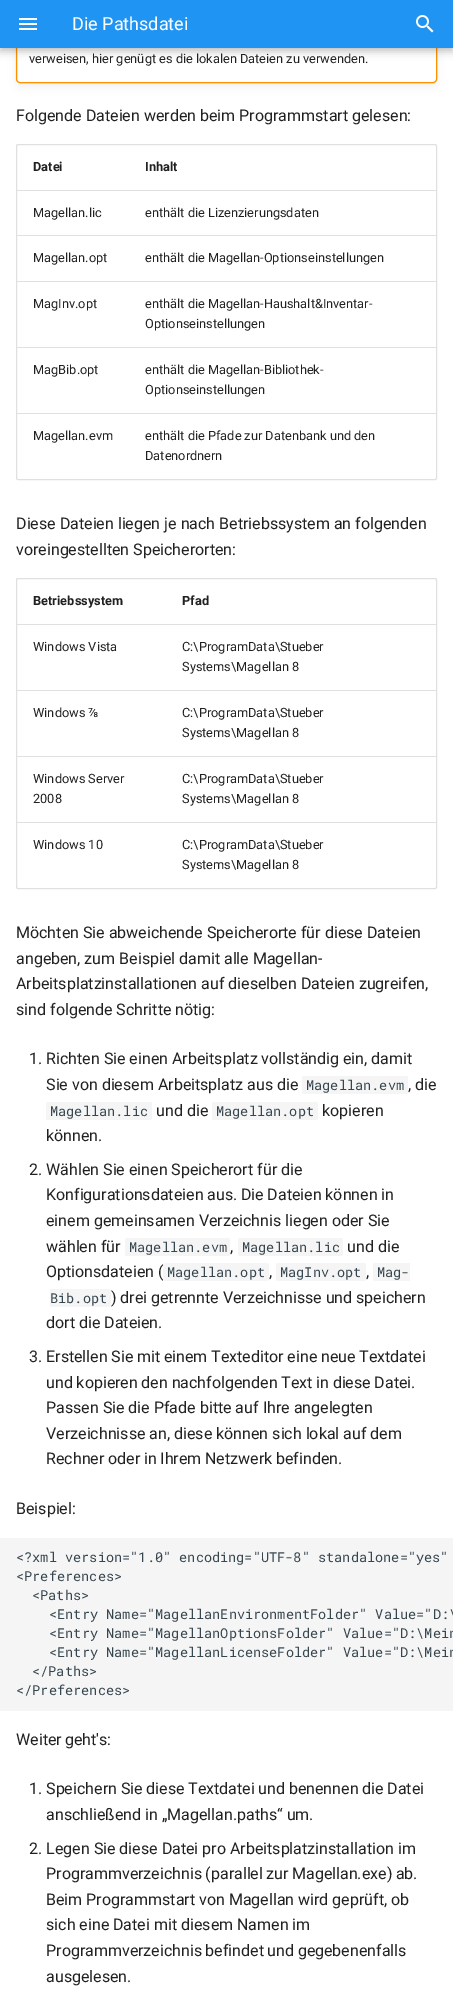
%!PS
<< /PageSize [453 2008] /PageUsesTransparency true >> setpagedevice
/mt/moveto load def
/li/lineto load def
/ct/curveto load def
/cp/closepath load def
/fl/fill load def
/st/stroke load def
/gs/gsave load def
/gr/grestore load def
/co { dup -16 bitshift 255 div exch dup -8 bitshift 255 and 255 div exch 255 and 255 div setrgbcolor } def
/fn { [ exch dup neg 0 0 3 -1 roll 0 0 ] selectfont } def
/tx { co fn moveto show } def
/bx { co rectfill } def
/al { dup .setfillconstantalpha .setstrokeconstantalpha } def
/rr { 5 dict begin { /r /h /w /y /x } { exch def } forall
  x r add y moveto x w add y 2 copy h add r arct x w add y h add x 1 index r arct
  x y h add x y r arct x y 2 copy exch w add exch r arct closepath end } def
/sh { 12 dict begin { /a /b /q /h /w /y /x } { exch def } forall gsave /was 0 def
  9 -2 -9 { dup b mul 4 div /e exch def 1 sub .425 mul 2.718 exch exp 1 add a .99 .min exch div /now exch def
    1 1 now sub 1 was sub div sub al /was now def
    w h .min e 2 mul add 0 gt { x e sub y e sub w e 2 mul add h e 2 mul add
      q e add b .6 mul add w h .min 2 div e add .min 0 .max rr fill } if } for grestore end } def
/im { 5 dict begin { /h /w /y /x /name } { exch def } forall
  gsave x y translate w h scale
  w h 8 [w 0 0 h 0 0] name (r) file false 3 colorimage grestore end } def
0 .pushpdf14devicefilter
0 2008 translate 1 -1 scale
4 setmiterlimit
0 0 453 2008 16#FFFFFF bx
16#000000 co
16 -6 421 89 4 .5 .1 sh
16 -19 421 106 4 5 .05 sh
16#FFFFFF co
16.5 -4.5 420 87 3.5 rr gs fl gr
16#FF9100 co
st
16#000000 co
0 4 453 48 0 4 .2 sh
0 0 453 48 0 2 .1 sh
0 0 453 48 16#2094F3 bx
(media/1.raw) 19 18 18 12 im
(media/2.raw) 416 15 18 18 im
16#E0E0E0 co
16.5 144.5 420 335 1.5 rr st
17 190 419 1 16#E0E0E0 bx
17 235 419 1 16#E0E0E0 bx
17 281 419 1 16#E0E0E0 bx
17 347 419 1 16#E0E0E0 bx
17 413 419 1 16#E0E0E0 bx
16.5 578.5 420 310 1.5 rr st
17 624 419 1 16#E0E0E0 bx
17 690 419 1 16#E0E0E0 bx
17 756 419 1 16#E0E0E0 bx
17 822 419 1 16#E0E0E0 bx
16#F5F5F5 co
302 1076 106 18 2 rr fl
46 1102 106 18 2 rr fl
212 1102 106 18 2 rr fl
125 1238 105 18 2 rr fl
238 1238 105 18 2 rr fl
276 1263 90 18 2 rr fl
375 1263 mt 410 1263 li 410 1281 li 375 1281 li 374 1281 373 1280 373 1279 ct 373 1265 li 373 1264 374 1263 375 1263 ct cp fl
50 1289 mt 109 1289 li 110 1289 111 1290 111 1291 ct 111 1305 li 111 1306 110 1307 109 1307 ct 50 1307 li cp fl
0 1538 453 173 16#F5F5F5 bx
(Die Pathsdatei) 72 30 /Roboto-Regular 18 16#FFFFFF tx
(verweisen, hier genügt es die lokalen Dateien zu verwenden.) 29 63 /Roboto-Regular 12.8 16#212121 tx
(Folgende Dateien werden beim Programmstart gelesen:) 16 121 /Roboto-Regular 16 16#212121 tx
(Datei) 33 171 /Roboto-Bold 12.8 16#212121 tx
(Inhalt) 145 171 /Roboto-Bold 12.8 16#212121 tx
(Magellan.lic) 33 217 /Roboto-Regular 12.8 16#212121 tx
(enthält die Lizenzierungsdaten) 145 217 /Roboto-Regular 12.8 16#212121 tx
(Magellan.opt) 33 262 /Roboto-Regular 12.8 16#212121 tx
(enthält die Magellan-Optionseinstellungen) 145 262 /Roboto-Regular 12.8 16#212121 tx
(MagInv.opt) 33 308 /Roboto-Regular 12.8 16#212121 tx
(enthält die Magellan-Haushalt&Inventar-) 145 308 /Roboto-Regular 12.8 16#212121 tx
(Optionseinstellungen) 145 328 /Roboto-Regular 12.8 16#212121 tx
(MagBib.opt) 33 374 /Roboto-Regular 12.8 16#212121 tx
(enthält die Magellan-Bibliothek-) 145 374 /Roboto-Regular 12.8 16#212121 tx
(Optionseinstellungen) 145 394 /Roboto-Regular 12.8 16#212121 tx
(Magellan.evm) 33 440 /Roboto-Regular 12.8 16#212121 tx
(enthält die Pfade zur Datenbank und den) 145 440 /Roboto-Regular 12.8 16#212121 tx
(Datenordnern) 145 460 /Roboto-Regular 12.8 16#212121 tx
(Diese Dateien liegen je nach Betriebssystem an folgenden) 16 529 /Roboto-Regular 16 16#212121 tx
(voreingestellten Speicherorten:) 16 555 /Roboto-Regular 16 16#212121 tx
(Betriebssystem) 33 605 /Roboto-Bold 12.8 16#212121 tx
(Pfad) 182 605 /Roboto-Bold 12.8 16#212121 tx
(Windows Vista) 33 651 /Roboto-Regular 12.8 16#212121 tx
(C:\\ProgramData\\Stueber) 182 651 /Roboto-Regular 12.8 16#212121 tx
(Systems\\Magellan 8) 182 671 /Roboto-Regular 12.8 16#212121 tx
(Windows ⅞) 33 717 /Roboto-Regular 12.8 16#212121 tx
(C:\\ProgramData\\Stueber) 182 717 /Roboto-Regular 12.8 16#212121 tx
(Systems\\Magellan 8) 182 737 /Roboto-Regular 12.8 16#212121 tx
(Windows Server) 33 783 /Roboto-Regular 12.8 16#212121 tx
(2008) 33 803 /Roboto-Regular 12.8 16#212121 tx
(C:\\ProgramData\\Stueber) 182 783 /Roboto-Regular 12.8 16#212121 tx
(Systems\\Magellan 8) 182 803 /Roboto-Regular 12.8 16#212121 tx
(Windows 10) 33 849 /Roboto-Regular 12.8 16#212121 tx
(C:\\ProgramData\\Stueber) 182 849 /Roboto-Regular 12.8 16#212121 tx
(Systems\\Magellan 8) 182 869 /Roboto-Regular 12.8 16#212121 tx
(Möchten Sie abweichende Speicherorte für diese Dateien) 16 938 /Roboto-Regular 16 16#212121 tx
(angeben, zum Beispiel damit alle Magellan-) 16 964 /Roboto-Regular 16 16#212121 tx
(Arbeitsplatzinstallationen auf dieselben Dateien zugreifen,) 16 989 /Roboto-Regular 16 16#212121 tx
(sind folgende Schritte nötig:) 16 1015 /Roboto-Regular 16 16#212121 tx
(1. Richten Sie einen Arbeitsplatz vollständig ein, damit) 29 1064 /Roboto-Regular 16 16#212121 tx
(Sie von diesem Arbeitsplatz aus die) 46 1090 /Roboto-Regular 16 16#212121 tx
(Magellan.evm) 306 1090 /RobotoMono-Regular 13.6 16#36464E tx
(, die) 408 1090 /Roboto-Regular 16 16#212121 tx
(Magellan.lic) 50 1116 /RobotoMono-Regular 13.6 16#36464E tx
(und die) 156 1116 /Roboto-Regular 16 16#212121 tx
(Magellan.opt) 216 1116 /RobotoMono-Regular 13.6 16#36464E tx
(kopieren) 322 1116 /Roboto-Regular 16 16#212121 tx
(können.) 46 1141 /Roboto-Regular 16 16#212121 tx
(2. Wählen Sie einen Speicherort für die) 29 1175 /Roboto-Regular 16 16#212121 tx
46 1200 mt -.25 0 32 (Konfigurationsdateien aus. Die Dateien können in) widthshow
(einem gemeinsamen Verzeichnis liegen oder Sie) 46 1226 /Roboto-Regular 16 16#212121 tx
(wählen für) 46 1252 /Roboto-Regular 16 16#212121 tx
(Magellan.evm) 129 1252 /RobotoMono-Regular 13.6 16#36464E tx
(,) 230 1252 /Roboto-Regular 16 16#212121 tx
(Magellan.lic) 242 1252 /RobotoMono-Regular 13.6 16#36464E tx
(und die) 347 1252 /Roboto-Regular 16 16#212121 tx
(Optionsdateien \() 46 1277 /Roboto-Regular 16 16#212121 tx
16#F5F5F5 co
163 1263 106 18 2 rr fl
(Magellan.opt) 167 1277 /RobotoMono-Regular 13.6 16#36464E tx
(,) 269 1277 /Roboto-Regular 16 16#212121 tx
(MagInv.opt) 280 1277 /RobotoMono-Regular 13.6 16#36464E tx
(,) 366 1277 /Roboto-Regular 16 16#212121 tx
(Mag-) 377 1277 /RobotoMono-Regular 13.6 16#36464E tx
(Bib.opt) 50 1303 /RobotoMono-Regular 13.6 16#36464E tx
/Roboto-Regular 16 fn
16#212121 co
111 1303 mt -.25 0 32 (\) drei getrennte Verzeichnisse und speichern) widthshow
(dort die Dateien.) 46 1328 /Roboto-Regular 16 16#212121 tx
(3.) 29 1362 /Roboto-Regular 16 16#212121 tx
46 1362 mt -.25 0 32 (Erstellen Sie mit einem Texteditor eine neue Textdatei) widthshow
46 1388 mt -.25 0 32 (und kopieren den nachfolgenden Text in diese Datei.) widthshow
(Passen Sie die Pfade bitte auf Ihre angelegten) 46 1413 /Roboto-Regular 16 16#212121 tx
(Verzeichnisse an, diese können sich lokal auf dem) 46 1439 /Roboto-Regular 16 16#212121 tx
46 1464 mt -.25 0 32 (Rechner oder in Ihrem Netzwerk befinden.) widthshow
(Beispiel:) 16 1514 /Roboto-Regular 16 16#212121 tx
(<?xml version="1.0" encoding="UTF-8" standalone="yes") 16 1562 /RobotoMono-Regular 13.6 16#36464E tx
(<Preferences>) 16 1581 /RobotoMono-Regular 13.6 16#36464E tx
(<Paths>) 32 1600 /RobotoMono-Regular 13.6 16#36464E tx
(<Entry Name="MagellanEnvironmentFolder" Value="D:\\) 49 1619 /RobotoMono-Regular 13.6 16#36464E tx
(<Entry Name="MagellanOptionsFolder" Value="D:\\Mein) 49 1638 /RobotoMono-Regular 13.6 16#36464E tx
(<Entry Name="MagellanLicenseFolder" Value="D:\\Mein) 49 1657 /RobotoMono-Regular 13.6 16#36464E tx
(</Paths>) 32 1676 /RobotoMono-Regular 13.6 16#36464E tx
(</Preferences>) 16 1695 /RobotoMono-Regular 13.6 16#36464E tx
/Roboto-Regular 16 fn
16#212121 co
16 1745 mt -1 0 32 (Weiter geht's:) widthshow
(1.) 29 1794 /Roboto-Regular 16 16#212121 tx
46 1794 mt -.25 0 32 (Speichern Sie diese Textdatei und benennen die Datei) widthshow
(anschließend in „Magellan.paths“ um.) 46 1820 /Roboto-Regular 16 16#212121 tx
(2. Legen Sie diese Datei pro Arbeitsplatzinstallation im) 29 1854 /Roboto-Regular 16 16#212121 tx
46 1879 mt -.5 0 32 (Programmverzeichnis \(parallel zur Magellan.exe\) ab.) widthshow
(Beim Programmstart von Magellan wird geprüft, ob) 46 1905 /Roboto-Regular 16 16#212121 tx
(sich eine Datei mit diesem Namen im) 46 1930 /Roboto-Regular 16 16#212121 tx
46 1956 mt -.5 0 32 (Programmverzeichnis befindet und gegebenenfalls) widthshow
(ausgelesen.) 46 1982 /Roboto-Regular 16 16#212121 tx
.poppdf14devicefilter showpage
